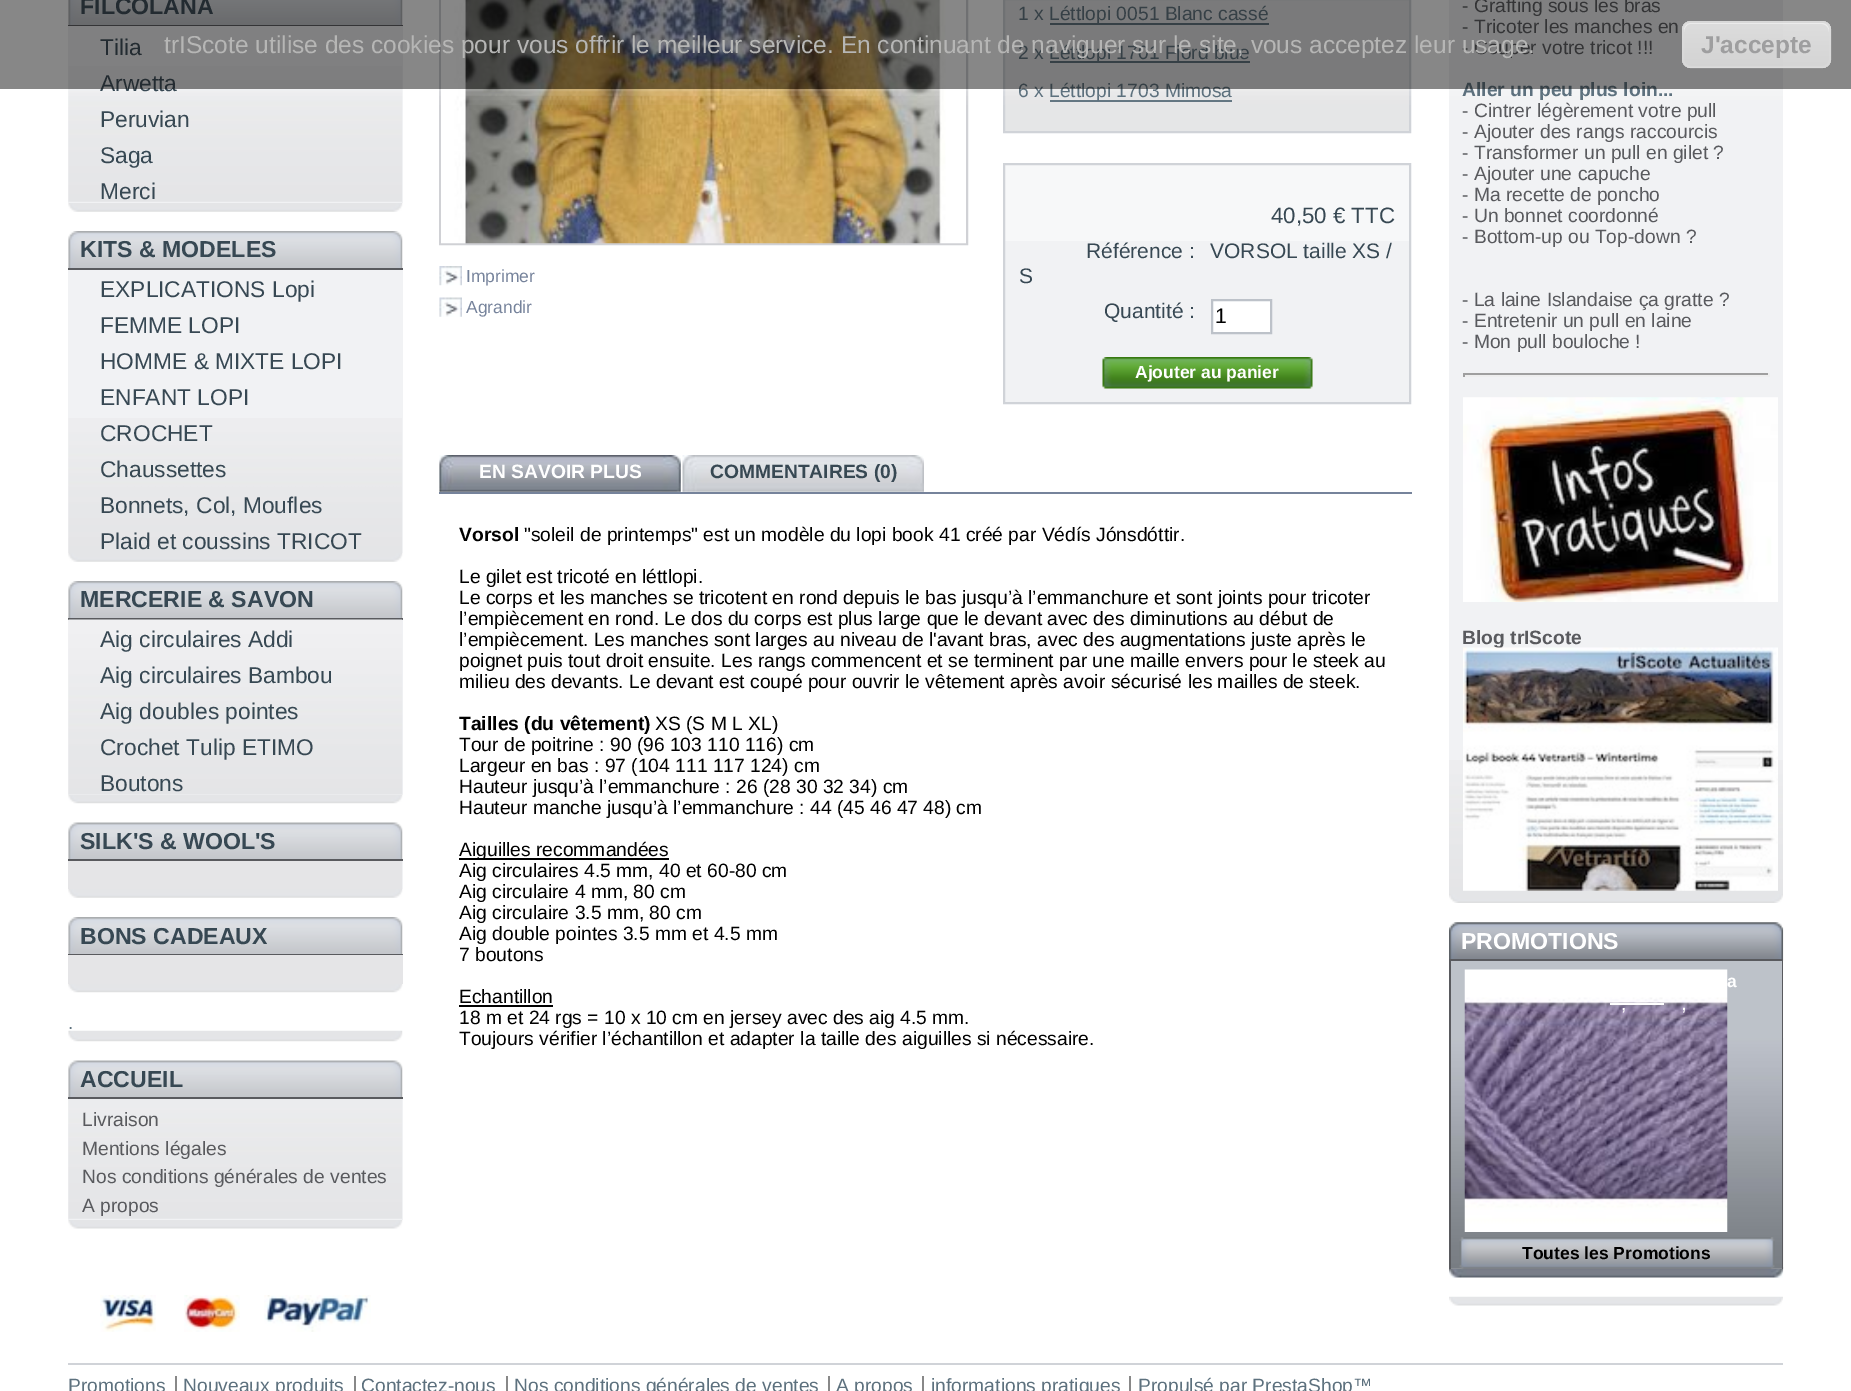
%!PS
<< /PageSize [1851 1391] /PageUsesTransparency true >> setpagedevice
/mt/moveto load def
/li/lineto load def
/ct/curveto load def
/cp/closepath load def
/fl/fill load def
/st/stroke load def
/gs/gsave load def
/gr/grestore load def
/lw/setlinewidth load def
/co { dup -16 bitshift 255 div exch dup -8 bitshift 255 and 255 div exch 255 and 255 div setrgbcolor } def
/fn { [ exch dup neg 0 0 3 -1 roll 0 0 ] selectfont } def
/tx { co fn moveto show } def
/bx { co rectfill } def
/al { dup .setfillconstantalpha .setstrokeconstantalpha } def
/rr { 5 dict begin { /r /h /w /y /x } { exch def } forall
  x r add y moveto x w add y 2 copy h add r arct x w add y h add x 1 index r arct
  x y h add x y r arct x y 2 copy exch w add exch r arct closepath end } def
/sh { 12 dict begin { /a /b /q /h /w /y /x } { exch def } forall gsave /was 0 def
  9 -2 -9 { dup b mul 4 div /e exch def 1 sub .425 mul 2.718 exch exp 1 add a .99 .min exch div /now exch def
    1 1 now sub 1 was sub div sub al /was now def
    w h .min e 2 mul add 0 gt { x e sub y e sub w e 2 mul add h e 2 mul add
      q e add b .6 mul add w h .min 2 div e add .min 0 .max rr fill } if } for grestore end } def
/im { 5 dict begin { /h /w /y /x /name } { exch def } forall
  gsave x y translate w h scale
  w h 8 [w 0 0 h 0 0] name (r) file false 3 colorimage grestore end } def
0 .pushpdf14devicefilter
0 1391 translate 1 -1 scale
4 setmiterlimit
0 0 1851 1391 16#FFFFFF bx
(media/1.raw) 68 203 335 9 im
(media/2.raw) 68 0 335 25 im
68 25 335 1 16#595A5E bx
68 26 335 177 16#F1F2F4 bx
(media/3.raw) 68 66 334 136 im
(media/1.raw) 68 553 335 9 im
(media/4.raw) 68 231 335 37 im
68 268 335 2 16#595A5E bx
68 270 335 283 16#F1F2F4 bx
(media/5.raw) 68 418 334 135 im
(media/6.raw) 68 795 335 9 im
(media/4.raw) 68 581 335 37 im
68 618 335 2 16#595A5E bx
68 620 335 175 16#F1F2F4 bx
(media/7.raw) 68 619 335 176 im
(media/1.raw) 68 889 335 9 im
(media/8.raw) 68 822 335 37 im
68 859 335 2 16#595A5E bx
402 861 1 28 16#F1F2F4 bx
68 861 334 28 16#E5E5E7 bx
(media/6.raw) 68 984 335 9 im
(media/4.raw) 68 917 335 37 im
68 954 335 1 16#595A5E bx
68 955 335 29 16#E5E5E7 bx
(media/9.raw) 68 1030 335 12 im
(media/10.raw) 68 1220 335 9 im
(media/8.raw) 68 1060 335 37 im
68 1097 335 2 16#595A5E bx
68 1099 335 121 16#F1F2F4 bx
(media/11.raw) 68 1099 334 120 im
(media/12.raw) 100 1295 56 37 im
(media/13.raw) 184 1295 56 37 im
(media/14.raw) 264 1295 107 37 im
16#D0D1D5 co
2 lw
440 -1 527 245 rectstroke
(media/15.raw) 441 0 525 244 im
(media/16.raw) 439 266 23 20 im
(media/17.raw) 439 297 23 20 im
16#E5E6E7 co
1004 -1 mt 1410 -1 li 1410 132 li 1004 132 li cp gs fl gr
16#D0D3D8 co
st
1050 23 219 2 16#5D717E bx
1050 61 200 2 16#5D717E bx
1050 100 182 2 16#5D717E bx
1005 241 404 161 16#F1F2F4 bx
1005 165 404 76 16#F7F8F9 bx
16#D0D3D8 co
1004 164 406 239 rectstroke
16#FFFFFF co
1212 300 mt 1271 300 li 1271 333 li 1212 333 li cp gs fl gr
16#BDC2C9 co
st
1103 357 210 32 16#EFEFEF bx
(media/18.raw) 1102 357 211 32 im
439 492 973 2 16#76839B bx
(media/19.raw) 439 455 242 37 im
(media/20.raw) 682 455 242 37 im
459 858 210 2 16#000000 bx
459 1005 94 2 16#000000 bx
(media/21.raw) 1449 894 334 9 im
1449 0 334 760 16#F1F2F4 bx
(media/22.raw) 1449 760 334 134 im
1463 373 306 2 16#9F9F9F bx
1768 373 2 4 16#EEEEEE bx
1463 375 306 2 16#EEEEEE bx
1463 373 2 4 16#9F9F9F bx
(media/23.raw) 1463 397 315 205 im
(media/25.raw) 1449 1267 335 11 im
(media/26.raw) 1449 922 335 39 im
1449 959 334 2 16#595A5E bx
1451 961 331 308 16#BDC2C9 bx
(media/27.raw) 1451 1038 333 231 im
1782 961 1 308 16#595A5E bx
1449 961 2 308 16#595A5E bx
(media/28.raw) 1464 969 264 263 im
1610 1003 54 2 16#FFFFFF bx
(media/29.raw) 1459 1237 316 32 im
(media/30.raw) 1449 1296 334 10 im
68 1363 1715 2 16#D0D3D8 bx
gs
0 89 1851 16 rectclip
16#FFFFFF co
0 0 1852 89 0 9 .5 sh
gr
175 1376 2 15 16#888888 bx
354 1376 2 15 16#888888 bx
506 1376 2 15 16#888888 bx
828 1376 2 15 16#888888 bx
922 1376 2 15 16#888888 bx
1129 1376 2 15 16#888888 bx
(FILCOLANA) 80 14 /LiberationSans-Bold 23.1 16#374853 tx
(Tilia) 100 55 /LiberationSans-Regular 22.75 16#374853 tx
(Arwetta) 100 91 /LiberationSans-Regular 22.75 16#374853 tx
(Peruvian) 100 127 /LiberationSans-Regular 22.75 16#374853 tx
(Saga) 100 163 /LiberationSans-Regular 22.75 16#374853 tx
(Merci) 100 199 /LiberationSans-Regular 22.75 16#374853 tx
(KITS & MODELES) 80 257 /LiberationSans-Bold 23.1 16#374853 tx
(EXPLICATIONS Lopi) 100 297 /LiberationSans-Regular 22.75 16#374853 tx
(FEMME LOPI) 100 333 /LiberationSans-Regular 22.75 16#374853 tx
(HOMME & MIXTE LOPI) 100 369 /LiberationSans-Regular 22.75 16#374853 tx
(ENFANT LOPI) 100 405 /LiberationSans-Regular 22.75 16#374853 tx
(CROCHET) 100 441 /LiberationSans-Regular 22.75 16#374853 tx
(Chaussettes) 100 477 /LiberationSans-Regular 22.75 16#374853 tx
(Bonnets, Col, Moufles) 100 513 /LiberationSans-Regular 22.75 16#374853 tx
(Plaid et coussins TRICOT) 100 549 /LiberationSans-Regular 22.75 16#374853 tx
(MERCERIE & SAVON) 80 607 /LiberationSans-Bold 23.1 16#374853 tx
(Aig circulaires Addi) 100 647 /LiberationSans-Regular 22.75 16#374853 tx
(Aig circulaires Bambou) 100 683 /LiberationSans-Regular 22.75 16#374853 tx
(Aig doubles pointes) 100 719 /LiberationSans-Regular 22.75 16#374853 tx
(Crochet Tulip ETIMO) 100 755 /LiberationSans-Regular 22.75 16#374853 tx
(Boutons) 100 791 /LiberationSans-Regular 22.75 16#374853 tx
(SILK'S & WOOL'S) 80 849 /LiberationSans-Bold 23.1 16#374853 tx
(BONS CADEAUX) 80 944 /LiberationSans-Bold 23.1 16#374853 tx
(.) 68 1029 /LiberationSans-Regular 19.25 16#5D717E tx
(ACCUEIL) 80 1087 /LiberationSans-Bold 23.1 16#374853 tx
(Livraison) 82 1126 /LiberationSans-Regular 19.25 16#595A5E tx
(Mentions légales) 82 1155 /LiberationSans-Regular 19.25 16#595A5E tx
(Nos conditions générales de ventes) 82 1183 /LiberationSans-Regular 19.25 16#595A5E tx
(A propos) 82 1212 /LiberationSans-Regular 19.25 16#595A5E tx
(Imprimer) 466 282 /LiberationSans-Regular 17.5 16#76839B tx
(Agrandir) 466 313 /LiberationSans-Regular 17.5 16#76839B tx
(1 x) 1018 20 /LiberationSans-Regular 19.25 16#5D717E tx
(Léttlopi 0051 Blanc cassé) 1049 20 /LiberationSans-Regular 19.25 16#5D717E tx
(2 x) 1018 59 /LiberationSans-Regular 19.25 16#5D717E tx
(Léttlopi 1701 Fjord blue) 1049 59 /LiberationSans-Regular 19.25 16#5D717E tx
(6 x) 1018 97 /LiberationSans-Regular 19.25 16#5D717E tx
(Léttlopi 1703 Mimosa) 1049 97 /LiberationSans-Regular 19.25 16#5D717E tx
(40,50 € TTC) 1271 223 /LiberationSans-Regular 22.25 16#374853 tx
(Référence :) 1086 258 /LiberationSans-Regular 21 16#374853 tx
(VORSOL taille XS /) 1210 258 /LiberationSans-Regular 21 16#374853 tx
(S) 1019 283 /LiberationSans-Regular 21 16#374853 tx
(Quantité :) 1104 318 /LiberationSans-Regular 21 16#374853 tx
(1) 1215 323 /LiberationSans-Regular 21 16#000000 tx
(Ajouter au panier) 1135 378 /LiberationSans-Bold 17.5 16#FFFFFF tx
(EN SAVOIR PLUS) 479 478 /LiberationSans-Bold 19.25 16#FFFFFF tx
(COMMENTAIRES \(0\)) 710 478 /LiberationSans-Bold 19.25 16#374853 tx
(Vorsol) 459 541 /LiberationSans-Bold 19.25 16#000000 tx
("soleil de printemps" est un modèle du lopi book 41 créé par Védís Jónsdóttir.) 524 541 /LiberationSans-Regular 19.25 16#000000 tx
(Le gilet est tricoté en léttlopi.) 459 583 /LiberationSans-Regular 19.25 16#000000 tx
(Le corps et les manches se tricotent en rond depuis le bas jusqu’à l’emmanchure et sont joints pour tricoter) 459 604 /LiberationSans-Regular 19.25 16#000000 tx
(l’empiècement en rond. Le dos du corps est plus large que le devant avec des diminutions au début de) 459 625 /LiberationSans-Regular 19.25 16#000000 tx
(l’empiècement. Les manches sont larges au niveau de l'avant bras, avec des augmentations juste après le) 459 646 /LiberationSans-Regular 19.25 16#000000 tx
(poignet puis tout droit ensuite. Les rangs commencent et se terminent par une maille envers pour le steek au) 459 667 /LiberationSans-Regular 19.25 16#000000 tx
(milieu des devants. Le devant est coupé pour ouvrir le vêtement après avoir sécurisé les mailles de steek.) 459 688 /LiberationSans-Regular 19.25 16#000000 tx
(Tailles \(du vêtement\)) 459 730 /LiberationSans-Bold 19.25 16#000000 tx
(XS \(S M L XL\)) 655 730 /LiberationSans-Regular 19.25 16#000000 tx
(Tour de poitrine : 90 \(96 103 110 116\) cm) 459 751 /LiberationSans-Regular 19.25 16#000000 tx
(Largeur en bas : 97 \(104 111 117 124\) cm) 459 772 /LiberationSans-Regular 19.25 16#000000 tx
(Hauteur jusqu’à l’emmanchure : 26 \(28 30 32 34\) cm) 459 793 /LiberationSans-Regular 19.25 16#000000 tx
(Hauteur manche jusqu’à l’emmanchure : 44 \(45 46 47 48\) cm) 459 814 /LiberationSans-Regular 19.25 16#000000 tx
(Aiguilles recommandées) 459 856 /LiberationSans-Regular 19.25 16#000000 tx
(Aig circulaires 4.5 mm, 40 et 60-80 cm) 459 877 /LiberationSans-Regular 19.25 16#000000 tx
(Aig circulaire 4 mm, 80 cm) 459 898 /LiberationSans-Regular 19.25 16#000000 tx
(Aig circulaire 3.5 mm, 80 cm) 459 919 /LiberationSans-Regular 19.25 16#000000 tx
(Aig double pointes 3.5 mm et 4.5 mm) 459 940 /LiberationSans-Regular 19.25 16#000000 tx
(7 boutons) 459 961 /LiberationSans-Regular 19.25 16#000000 tx
(Echantillon) 459 1003 /LiberationSans-Regular 19.25 16#000000 tx
(18 m et 24 rgs = 10 x 10 cm en jersey avec des aig 4.5 mm.) 459 1024 /LiberationSans-Regular 19.25 16#000000 tx
(Toujours vérifier l’échantillon et adapter la taille des aiguilles si nécessaire.) 459 1045 /LiberationSans-Regular 19.25 16#000000 tx
(- Grafting sous les bras) 1462 12 /LiberationSans-Regular 19.25 16#595A5E tx
(- Tricoter les manches en) 1462 33 /LiberationSans-Regular 19.25 16#595A5E tx
(- Couper votre tricot !!!) 1462 54 /LiberationSans-Regular 19.25 16#595A5E tx
(Aller un peu plus loin...) 1462 96 /LiberationSans-Bold 19.25 16#5D717E tx
(- Cintrer légèrement votre pull) 1462 117 /LiberationSans-Regular 19.25 16#595A5E tx
(- Ajouter des rangs raccourcis) 1462 138 /LiberationSans-Regular 19.25 16#595A5E tx
(- Transformer un pull en gilet ?) 1462 159 /LiberationSans-Regular 19.25 16#595A5E tx
(- Ajouter une capuche) 1462 180 /LiberationSans-Regular 19.25 16#595A5E tx
(- Ma recette de poncho) 1462 201 /LiberationSans-Regular 19.25 16#595A5E tx
(- Un bonnet coordonné) 1462 222 /LiberationSans-Regular 19.25 16#595A5E tx
(- Bottom-up ou Top-down ?) 1462 243 /LiberationSans-Regular 19.25 16#595A5E tx
(- La laine Islandaise ça gratte ?) 1462 306 /LiberationSans-Regular 19.25 16#595A5E tx
(- Entretenir un pull en laine) 1462 327 /LiberationSans-Regular 19.25 16#595A5E tx
(- Mon pull bouloche !) 1462 348 /LiberationSans-Regular 19.25 16#595A5E tx
(Blog trIScote) 1462 644 /LiberationSans-Bold 19.25 16#595A5E tx
(media/24.raw) 1463 647 315 244 im
(PROMOTIONS) 1461 949 /LiberationSans-Bold 23.1 16#FFFFFF tx
(a) 1727 987 /LiberationSans-Bold 17.5 16#FFFFFF tx
(,) 1621 1010 /LiberationSans-Regular 19.25 16#FFFFFF tx
(,) 1681 1010 /LiberationSans-Regular 21 16#FFFFFF tx
(Toutes les Promotions) 1522 1259 /LiberationSans-Bold 17.5 16#000000 tx
0.5 al
0 0 1851 89 16#0F0F0F bx
1 al
(trIScote utilise des cookies pour vous offrir le meilleur service. En continuant de naviguer sur le site, vous acceptez leur usage.) 164 53 /LiberationSans-Regular 24.5 16#B6B6B5 tx
0.5 al
16#F9F9F9 co
1682 21 149 47 9 rr fl
gs
1682 21 149 47 9 rr clip newpath
gs 1682 21 mt 1831 21 li 1831 23 li 1682 23 li cp clip newpath
<< /ShadingType 2 /ColorSpace /DeviceRGB /Coords [1684 -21 1684 23] /Extend [true true] /Function << /FunctionType 3 /Domain [0 1] /Functions [<< /FunctionType 2 /Domain [0 1] /C0 [.976 .976 .976] /C1 [.976 .976 .976] /N 1 >> << /FunctionType 2 /Domain [0 1] /C0 [.976 .976 .976] /C1 [.914 .914 .914] /N 1 >>] /Bounds [.05] /Encode [0 1 0 1] >> >> shfill gr
gs 1682 23 mt 1831 23 li 1831 67 li 1682 67 li cp clip newpath
<< /ShadingType 2 /ColorSpace /DeviceRGB /Coords [1684 23 1684 67] /Extend [true true] /Function << /FunctionType 3 /Domain [0 1] /Functions [<< /FunctionType 2 /Domain [0 1] /C0 [.976 .976 .976] /C1 [.976 .976 .976] /N 1 >> << /FunctionType 2 /Domain [0 1] /C0 [.976 .976 .976] /C1 [.914 .914 .914] /N 1 >>] /Bounds [.05] /Encode [0 1 0 1] >> >> shfill gr
gs 1682 67 mt 1831 67 li 1831 68 li 1682 68 li cp clip newpath
<< /ShadingType 2 /ColorSpace /DeviceRGB /Coords [1684 67 1684 110] /Extend [true true] /Function << /FunctionType 3 /Domain [0 1] /Functions [<< /FunctionType 2 /Domain [0 1] /C0 [.976 .976 .976] /C1 [.976 .976 .976] /N 1 >> << /FunctionType 2 /Domain [0 1] /C0 [.976 .976 .976] /C1 [.914 .914 .914] /N 1 >>] /Bounds [.05] /Encode [0 1 0 1] >> >> shfill gr
gr
16#FFFFFF co
1690 24 mt 1822 24 li 1826 24 1829 28 1829 32 ct 1829 30 li 1829 26 1826 23 1822 23 ct 1691 23 li 1687 23 1684 26 1684 30 ct 1684 32 li 1684 28 1687 24 1690 24 ct cp fl
16#DCDCDC co
1683 22 147 45 8 rr st
1 al
(J'accepte) 1701 53 /LiberationSans-Bold 24.5 16#9E9E9F tx
(Promotions) 68 1392 /LiberationSans-Regular 19.25 16#5D717E tx
(Nouveaux produits) 183 1392 /LiberationSans-Regular 19.25 16#5D717E tx
(Contactez-nous) 361 1392 /LiberationSans-Regular 19.25 16#5D717E tx
(Nos conditions générales de ventes) 514 1392 /LiberationSans-Regular 19.25 16#5D717E tx
(A propos) 836 1392 /LiberationSans-Regular 19.25 16#5D717E tx
(informations pratiques) 931 1392 /LiberationSans-Regular 19.25 16#5D717E tx
(Propulsé par PrestaShop™) 1138 1392 /LiberationSans-Regular 19.25 16#5D717E tx
.poppdf14devicefilter showpage
